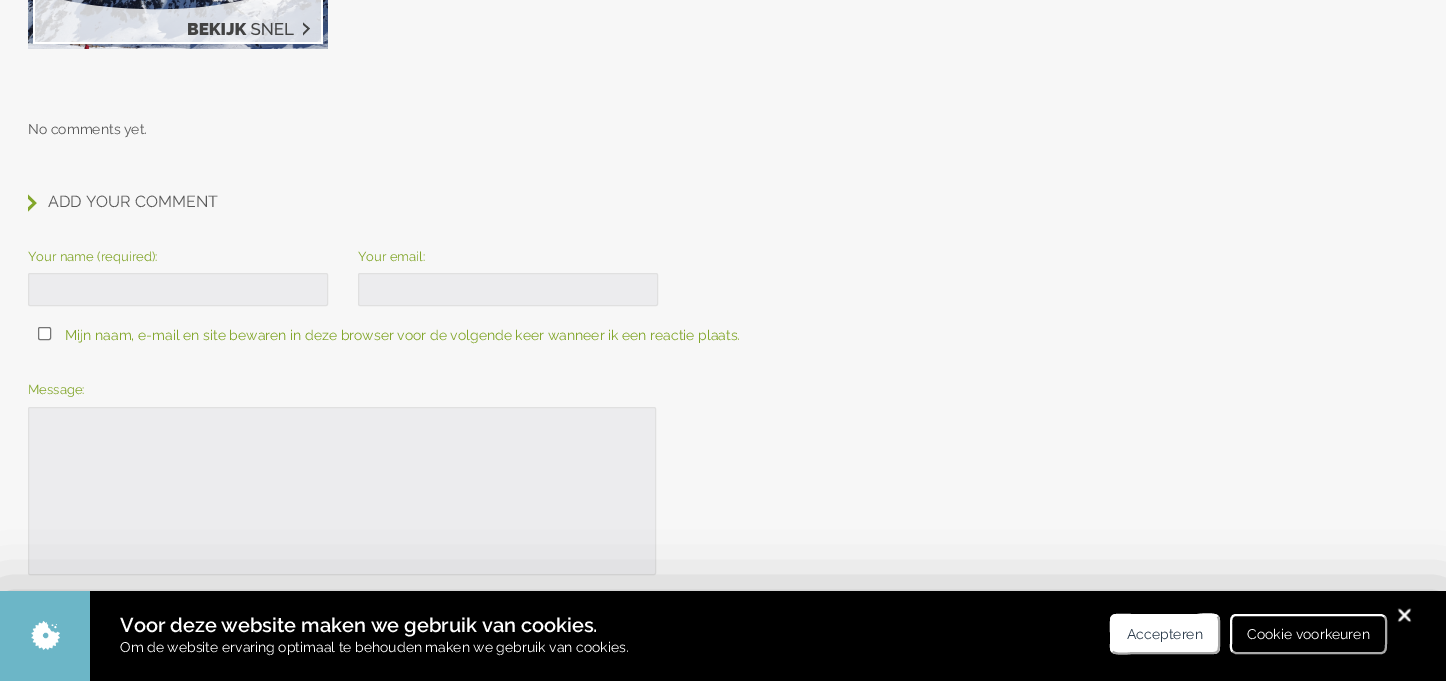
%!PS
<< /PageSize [1446 681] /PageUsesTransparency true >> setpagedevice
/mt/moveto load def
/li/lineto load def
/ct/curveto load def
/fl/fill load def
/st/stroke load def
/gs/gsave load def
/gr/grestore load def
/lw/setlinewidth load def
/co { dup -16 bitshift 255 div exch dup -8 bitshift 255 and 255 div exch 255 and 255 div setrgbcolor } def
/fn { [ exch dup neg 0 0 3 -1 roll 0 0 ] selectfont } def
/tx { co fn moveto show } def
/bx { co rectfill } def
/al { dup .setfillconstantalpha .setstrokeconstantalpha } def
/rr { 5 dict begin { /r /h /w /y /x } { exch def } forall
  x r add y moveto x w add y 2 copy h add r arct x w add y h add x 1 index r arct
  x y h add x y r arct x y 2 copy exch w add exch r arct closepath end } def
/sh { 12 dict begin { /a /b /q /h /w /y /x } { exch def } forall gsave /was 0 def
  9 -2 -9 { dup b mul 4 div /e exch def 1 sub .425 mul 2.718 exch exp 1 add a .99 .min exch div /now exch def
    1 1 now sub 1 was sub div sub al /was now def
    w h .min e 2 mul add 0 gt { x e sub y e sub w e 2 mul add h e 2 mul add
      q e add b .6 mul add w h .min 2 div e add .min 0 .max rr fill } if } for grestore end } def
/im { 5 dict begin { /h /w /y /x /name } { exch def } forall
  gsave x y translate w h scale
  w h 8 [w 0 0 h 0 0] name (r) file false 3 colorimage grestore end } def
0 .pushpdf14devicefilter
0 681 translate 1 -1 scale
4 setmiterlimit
0 0 1446 681 16#F7F7F7 bx
(media/1.raw) 28 0 300 49 im
(media/2.raw) 28 194 9 18 im
16#ECECEE co
28.5 273.5 299 32 1.5 rr gs fl gr
16#E0E0E0 co
st
16#ECECEE co
358.5 273.5 299 32 1.5 rr gs fl gr
16#E0E0E0 co
st
16#FFFFFF co
38.5 327.5 12 12 1.5 rr gs fl gr
16#767676 co
st
16#ECECEE co
28.5 407.5 627 167 1.5 rr gs fl gr
16#E0E0E0 co
st
16#000000 co
-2 597 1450 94 0 30 .29 sh
90 591 1356 90 16#000000 bx
0 591 90 90 16#6CB6C7 bx
(media/3.raw) 31 621 29 29 im
(media/4.raw) 1397 608 15 15 im
16#FFFFFF co
1110 614 110 40 6 rr fl
16#AAAAAA co
2 lw
1217.5 616.5 mt 1219.5 618.5 1219 622 1219 624.5 ct 1219 634 li 1219 656.5 1221.5 653 1197.5 653 ct 1132.5 653 li 1131.5 653 1116.5 655.5 1112.5 651.5 ct st
16#FFFFFF co
1112.5 651.5 mt 1110.5 649.5 1111 646 1111 643.5 ct 1111 634 li 1111 611.5 1108.5 615 1132.5 615 ct 1197.5 615 li 1198.5 615 1213.5 612.5 1217.5 616.5 ct st
16#AAAAAA co
1384.5 616.5 mt 1386.5 618.5 1386 622 1386 624.5 ct 1386 643.5 li 1386 647 1386.5 653 1381 653 ct 1235.5 653 li 1232.5 651.5 li st
16#FFFFFF co
1232.5 651.5 mt 1230.5 649.5 1231 646 1231 643.5 ct 1231 624.5 li 1231 621 1230.5 615 1236 615 ct 1381.5 615 li 1384.5 616.5 li st
(No comments yet.) 28 134 /Raleway-Regular 14 16#595959 tx
(ADD YOUR COMMENT) 48 207 /Raleway-Regular 16 16#595959 tx
(Your name \(required\):) 28 261 /Raleway-Regular 13 16#82A62B tx
(Your email:) 358 261 /Raleway-Regular 13 16#82A62B tx
(Mijn naam, e-mail en site bewaren in deze browser voor de volgende keer wanneer ik een reactie plaats.) 65 340 /Raleway-Regular 14 16#82A62B tx
(Message:) 28 394 /Raleway-Regular 13 16#82A62B tx
(Voor deze website maken we gebruik van cookies.) 120 632 /Raleway-SemiBold 20 16#FFFFFF tx
(Om de website ervaring optimaal te behouden maken we gebruik van cookies.) 120 652 /Raleway-Regular 14 16#FFFFFF tx
(Accepteren) 1127 639 /Raleway-Regular 14 16#2D3D4D tx
(Cookie voorkeuren) 1247 639 /Raleway-Regular 14 16#FFFFFF tx
.poppdf14devicefilter showpage
